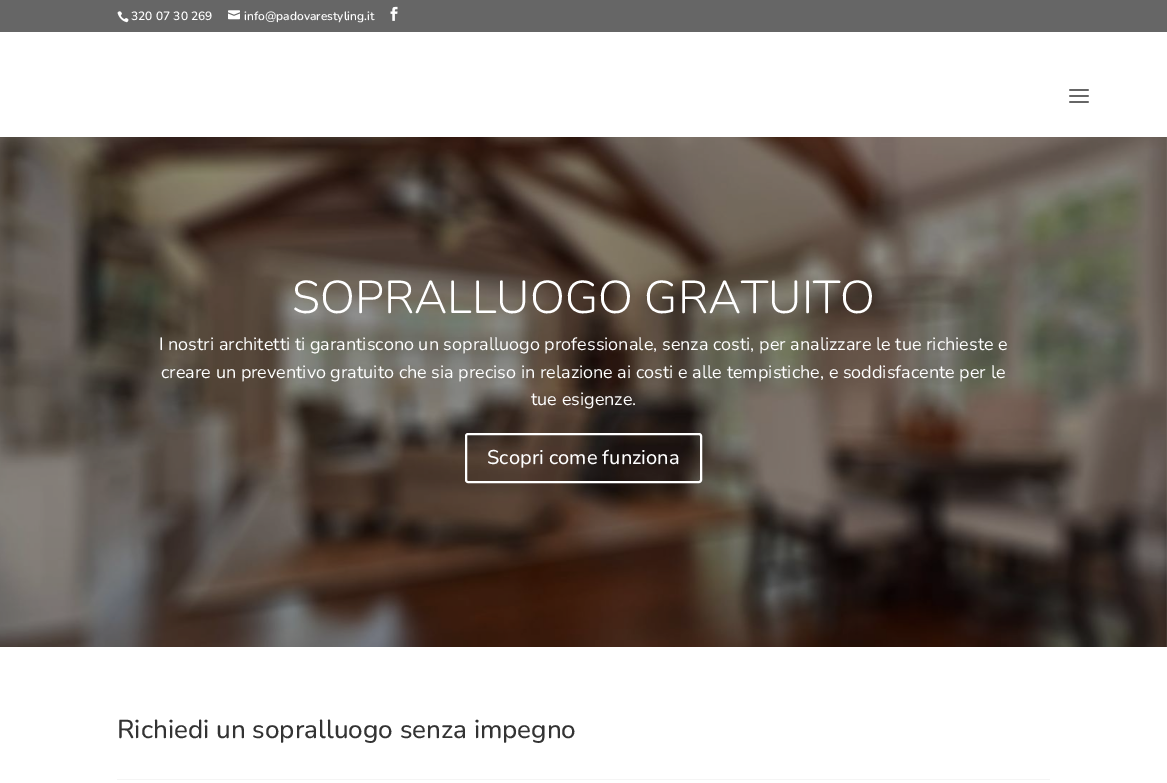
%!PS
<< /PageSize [1167 783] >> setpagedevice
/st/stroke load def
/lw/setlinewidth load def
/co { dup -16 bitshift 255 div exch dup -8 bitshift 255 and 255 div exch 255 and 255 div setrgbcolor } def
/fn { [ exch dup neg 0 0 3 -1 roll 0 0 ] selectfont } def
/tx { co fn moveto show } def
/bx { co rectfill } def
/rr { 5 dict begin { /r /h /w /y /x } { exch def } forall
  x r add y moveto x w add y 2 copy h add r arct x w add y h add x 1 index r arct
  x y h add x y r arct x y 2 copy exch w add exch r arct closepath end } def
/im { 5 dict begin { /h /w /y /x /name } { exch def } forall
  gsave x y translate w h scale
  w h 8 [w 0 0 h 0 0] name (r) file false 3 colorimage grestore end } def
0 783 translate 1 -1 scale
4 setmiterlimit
0 0 1167 783 16#FFFFFF bx
0 0 1167 32 16#666666 bx
(media/1.raw) 117 11 12 12 im
(media/2.raw) 228 10 12 10 im
(media/3.raw) 390 6 8 15 im
(media/4.raw) 1069 89 20 14 im
(media/5.raw) 0 137 1167 510 im
16#FFFFFF co
2 lw
466 434 235 48 2 rr st
117 779 933 1 16#F5F5F5 bx
(320 07 30 269) 131 20 /Nunito-SemiBold 12 16#FFFFFF tx
(info@padovarestyling.it) 244 20 /Nunito-SemiBold 12 16#FFFFFF tx
(SOPRALLUOGO GRATUITO) 292 313 /Nunito-Light 46 16#FFFFFF tx
(I nostri architetti ti garantiscono un sopralluogo professionale, senza costi, per analizzare le tue richieste e) 159 350 /Nunito-Regular 18 16#FFFFFF tx
(creare un preventivo gratuito che sia preciso in relazione ai costi e alle tempistiche, e soddisfacente per le) 161 378 /Nunito-Regular 18 16#FFFFFF tx
(tue esigenze.) 531 405 /Nunito-Regular 18 16#FFFFFF tx
(Scopri come funziona) 487 464 /Nunito-Medium 20 16#FFFFFF tx
(Richiedi un sopralluogo senza impegno) 117 738 /Nunito-Medium 26 16#333333 tx
showpage
